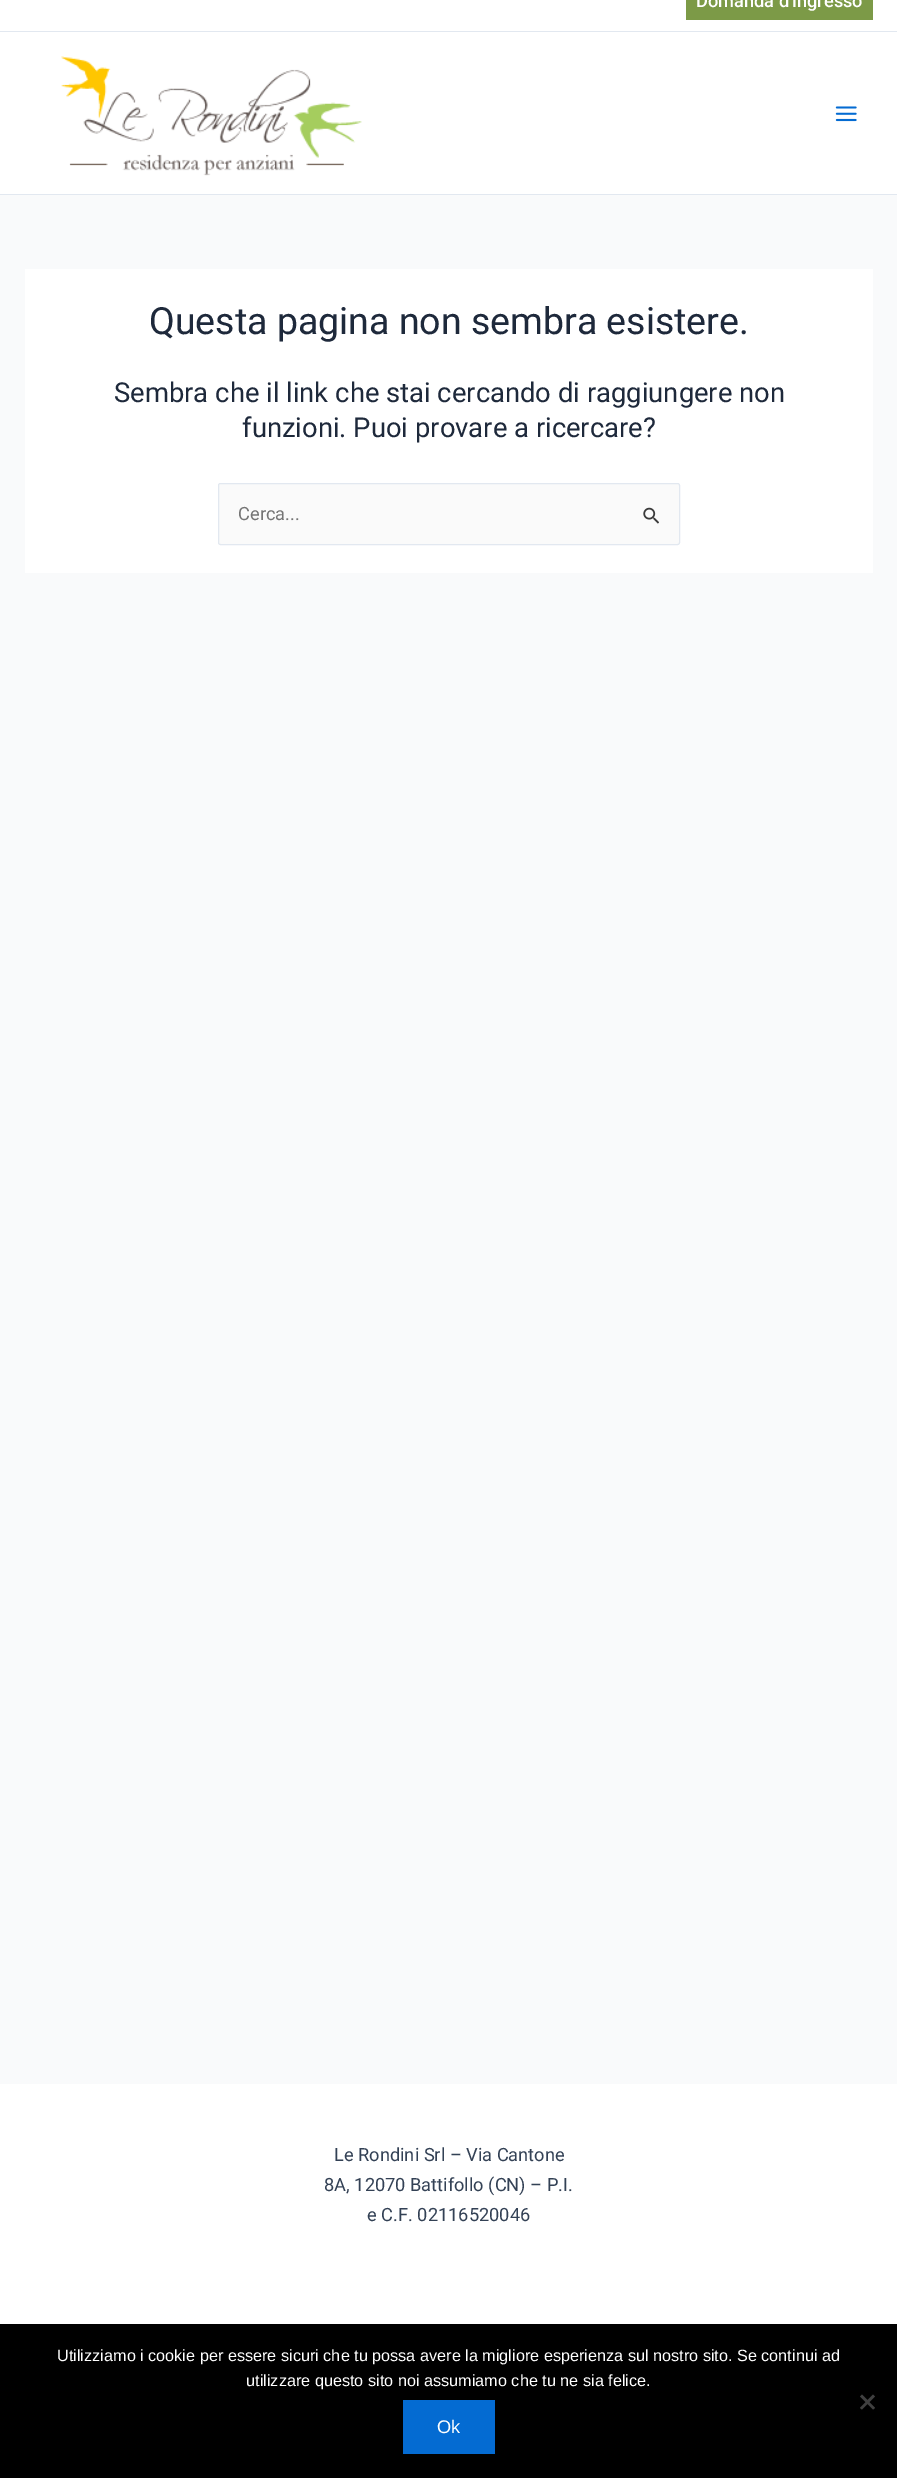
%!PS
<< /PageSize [897 2478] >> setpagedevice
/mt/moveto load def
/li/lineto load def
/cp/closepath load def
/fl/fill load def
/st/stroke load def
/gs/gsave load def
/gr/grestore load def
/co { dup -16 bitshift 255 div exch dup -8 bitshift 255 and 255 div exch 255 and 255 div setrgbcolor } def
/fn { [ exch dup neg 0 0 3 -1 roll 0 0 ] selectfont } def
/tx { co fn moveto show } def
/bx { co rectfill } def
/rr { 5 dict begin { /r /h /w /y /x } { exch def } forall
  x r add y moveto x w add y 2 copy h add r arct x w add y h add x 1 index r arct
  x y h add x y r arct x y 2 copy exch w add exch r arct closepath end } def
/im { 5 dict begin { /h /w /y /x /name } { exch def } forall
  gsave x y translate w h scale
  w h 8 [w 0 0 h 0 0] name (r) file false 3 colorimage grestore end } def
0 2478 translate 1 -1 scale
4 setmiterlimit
0 0 897 2478 16#F9FAFB bx
0 0 897 194 16#FFFFFF bx
0 31 897 1 16#E2E8F0 bx
686 0 187 20 16#7C9A47 bx
0 194 897 1 16#E2E8F0 bx
(media/1.raw) 61 56 301 120 im
(media/2.raw) 835 106 22 16 im
25 269 848 304 16#FFFFFF bx
16#FAFAFA co
218.5 483.5 461 61 2 rr gs fl gr
16#E2E8F0 co
st
(media/3.raw) 643 507 16 17 im
0 2084 897 240 16#FFFFFF bx
0 2324 897 154 16#000000 bx
16#404040 co
873 2394.5 mt 875 2396.5 li 862 2409.5 li 860 2408 li cp fl
860 2396.5 mt 862 2394.5 li 875 2408 li 873 2409.5 li cp fl
403 2400 92 54 16#046BD2 bx
(Domanda d'ingresso) 696 7 /Roboto-Medium 18.25 16#FFFFFF tx
(Questa pagina non sembra esistere.) 149 334 /Roboto-Regular 37.5 16#1E293B tx
(Sembra che il link che stai cercando di raggiungere non) 114 402 /Roboto-Regular 27.4 16#1E293B tx
(funzioni. Puoi provare a ricercare?) 242 437 /Roboto-Regular 27.4 16#1E293B tx
(Cerca...) 238 520 /Roboto-Regular 18.25 16#757575 tx
(Le Rondini Srl – Via Cantone) 334 2161 /Roboto-Regular 18.25 16#334155 tx
(8A, 12070 Battifollo \(CN\) – P.I.) 324 2191 /Roboto-Regular 18.25 16#334155 tx
(e C.F. 02116520046) 367 2221 /Roboto-Regular 18.25 16#334155 tx
(Utilizziamo i cookie per essere sicuri che tu possa avere la migliore esperienza sul nostro sito. Se continui ad) 57 2361 /LiberationSans-Regular 16.25 16#FFFFFF tx
(utilizzare questo sito noi assumiamo che tu ne sia felice.) 246 2386 /LiberationSans-Regular 16.25 16#FFFFFF tx
(Ok) 437 2433 /LiberationSans-Regular 18.25 16#FFFFFF tx
showpage
